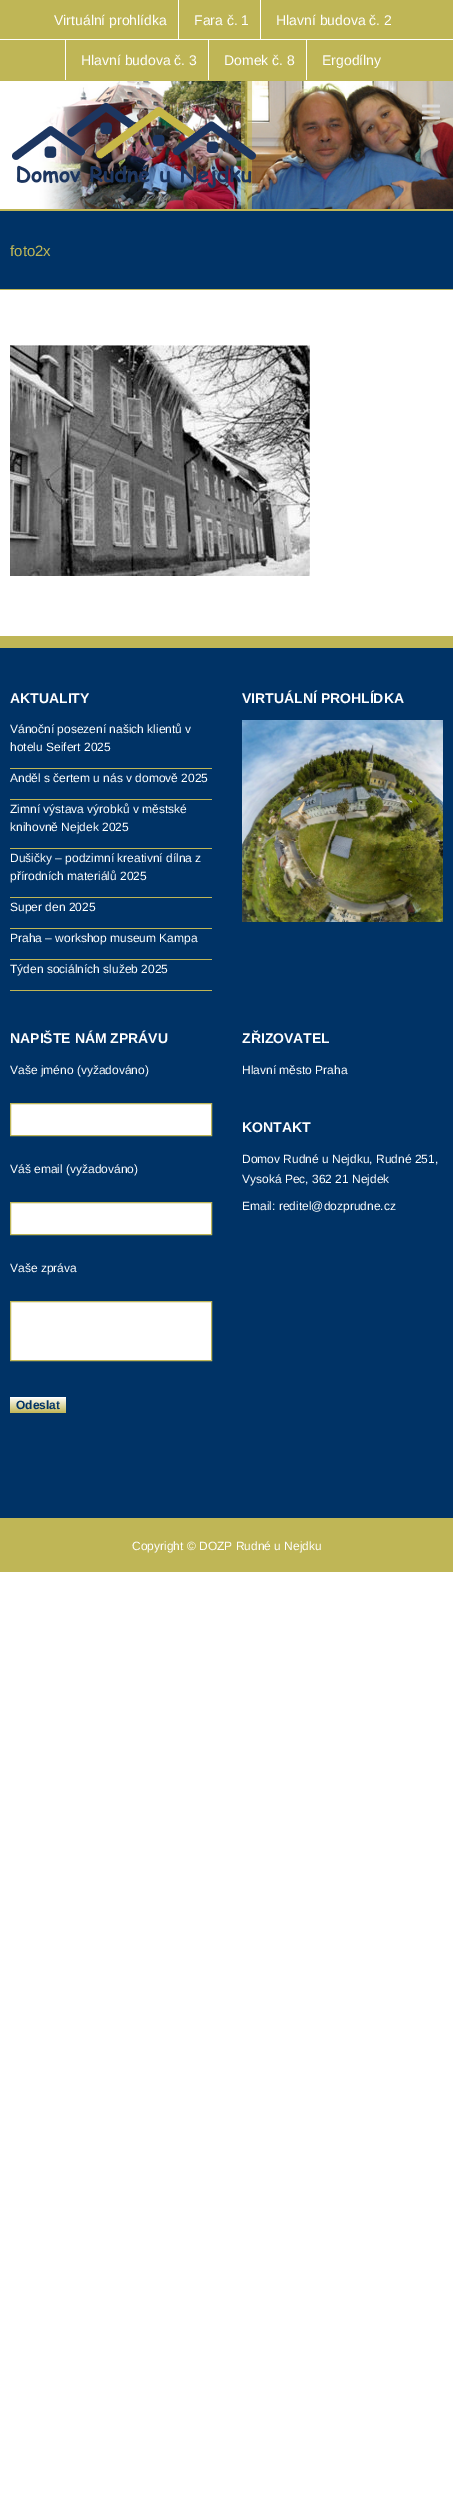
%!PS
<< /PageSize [453 2519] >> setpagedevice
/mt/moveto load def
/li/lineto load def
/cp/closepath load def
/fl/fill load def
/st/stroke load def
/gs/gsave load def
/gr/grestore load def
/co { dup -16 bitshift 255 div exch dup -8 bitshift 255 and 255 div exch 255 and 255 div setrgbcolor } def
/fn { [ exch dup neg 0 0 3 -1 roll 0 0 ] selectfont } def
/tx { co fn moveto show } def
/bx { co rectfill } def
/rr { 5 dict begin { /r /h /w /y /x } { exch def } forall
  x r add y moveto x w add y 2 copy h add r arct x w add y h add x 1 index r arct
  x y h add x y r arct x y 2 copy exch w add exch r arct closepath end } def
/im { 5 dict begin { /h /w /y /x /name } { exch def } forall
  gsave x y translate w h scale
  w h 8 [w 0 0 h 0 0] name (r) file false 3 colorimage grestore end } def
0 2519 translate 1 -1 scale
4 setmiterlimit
0 0 453 2519 16#FFFFFF bx
0 0 453 81 16#BFB656 bx
178 0 1 40 16#FFFFFF bx
260 0 1 40 16#FFFFFF bx
0 39 453 1 16#FFFFFF bx
65 40 1 40 16#FFFFFF bx
208 40 1 40 16#FFFFFF bx
306 40 1 40 16#FFFFFF bx
(media/1.raw) 0 81 453 128 im
0 209 453 2 16#BFB656 bx
(media/2.raw) 12 103 244 85 im
(media/3.raw) 422 104 18 16 im
0 211 453 78 16#003366 bx
0 289 453 1 16#BFB656 bx
(media/4.raw) 10 345 300 231 im
0 648 453 870 16#003366 bx
0 636 453 12 16#BFB656 bx
10 768 202 1 16#BFB656 bx
10 799 202 1 16#BFB656 bx
10 848 202 1 16#BFB656 bx
10 897 202 1 16#BFB656 bx
10 928 202 1 16#BFB656 bx
10 959 202 1 16#BFB656 bx
10 990 202 1 16#BFB656 bx
(media/5.raw) 242 720 201 202 im
16#FFFFFF co
10.5 1103.5 mt 211.5 1103.5 li 211.5 1135.5 li 10.5 1135.5 li cp gs fl gr
16#BFB656 co
st
16#FFFFFF co
10.5 1202.5 mt 211.5 1202.5 li 211.5 1234.5 li 10.5 1234.5 li cp gs fl gr
16#BFB656 co
st
16#FFFFFF co
10.5 1301.5 mt 211.5 1301.5 li 211.5 1360.5 li 10.5 1360.5 li cp gs fl gr
16#BFB656 co
st
gs 10 1397 56 16 2 rr clip newpath
<< /ShadingType 2 /ColorSpace /DeviceRGB /Coords [38 1413 38 1397] /Extend [true true] /Function << /FunctionType 2 /Domain [0 1] /C0 [.749 .714 .337] /C1 [1 1 1] /N 1 >> >> shfill gr
0 1518 453 54 16#BFB656 bx
(Virtuální prohlídka) 54 25 /LiberationSans-Regular 14 16#FFFFFF tx
(Fara č. 1) 194 25 /LiberationSans-Regular 14 16#FFFFFF tx
(Hlavní budova č. 2) 276 25 /LiberationSans-Regular 14 16#FFFFFF tx
(Hlavní budova č. 3) 81 65 /LiberationSans-Regular 14 16#FFFFFF tx
(Domek č. 8) 224 65 /LiberationSans-Regular 14 16#FFFFFF tx
(Ergodílny) 322 65 /LiberationSans-Regular 14 16#FFFFFF tx
(foto2x) 10 256 /LiberationSans-Regular 15 16#BFB656 tx
(AKTUALITY) 10 703 /LiberationSans-Bold 14 16#FFFFFF tx
(Vánoční posezení našich klientů v) 10 733 /LiberationSans-Regular 12 16#FFFFFF tx
(hotelu Seifert 2025) 10 751 /LiberationSans-Regular 12 16#FFFFFF tx
(Anděl s čertem u nás v domově 2025) 10 782 /LiberationSans-Regular 12 16#FFFFFF tx
(Zimní výstava výrobků v městské) 10 813 /LiberationSans-Regular 12 16#FFFFFF tx
(knihovně Nejdek 2025) 10 831 /LiberationSans-Regular 12 16#FFFFFF tx
(Dušičky – podzimní kreativní dílna z) 10 862 /LiberationSans-Regular 12 16#FFFFFF tx
(přírodních materiálů 2025) 10 880 /LiberationSans-Regular 12 16#FFFFFF tx
(Super den 2025) 10 911 /LiberationSans-Regular 12 16#FFFFFF tx
(Praha – workshop museum Kampa) 10 942 /LiberationSans-Regular 12 16#FFFFFF tx
(Týden sociálních služeb 2025) 10 973 /LiberationSans-Regular 12 16#FFFFFF tx
(VIRTUÁLNÍ PROHLÍDKA) 242 703 /LiberationSans-Bold 14 16#FFFFFF tx
(NAPIŠTE NÁM ZPRÁVU) 10 1043 /LiberationSans-Bold 14 16#FFFFFF tx
(Vaše jméno \(vyžadováno\)) 10 1074 /LiberationSans-Regular 12 16#FFFFFF tx
(Váš email \(vyžadováno\)) 10 1173 /LiberationSans-Regular 12 16#FFFFFF tx
(Vaše zpráva) 10 1272 /LiberationSans-Regular 12 16#FFFFFF tx
(Odeslat) 16 1409 /LiberationSans-Bold 12 16#003366 tx
(ZŘIZOVATEL) 242 1043 /LiberationSans-Bold 14 16#FFFFFF tx
(Hlavní město Praha) 242 1074 /LiberationSans-Regular 12 16#FFFFFF tx
(KONTAKT) 242 1132 /LiberationSans-Bold 14 16#FFFFFF tx
(Domov Rudné u Nejdku, Rudné 251,) 242 1163 /LiberationSans-Regular 12 16#FFFFFF tx
(Vysoká Pec, 362 21 Nejdek) 242 1183 /LiberationSans-Regular 12 16#FFFFFF tx
(Email: reditel@dozprudne.cz) 242 1210 /LiberationSans-Regular 12 16#FFFFFF tx
(Copyright © DOZP Rudné u Nejdku) 132 1550 /LiberationSans-Regular 12 16#FFFFFF tx
showpage
